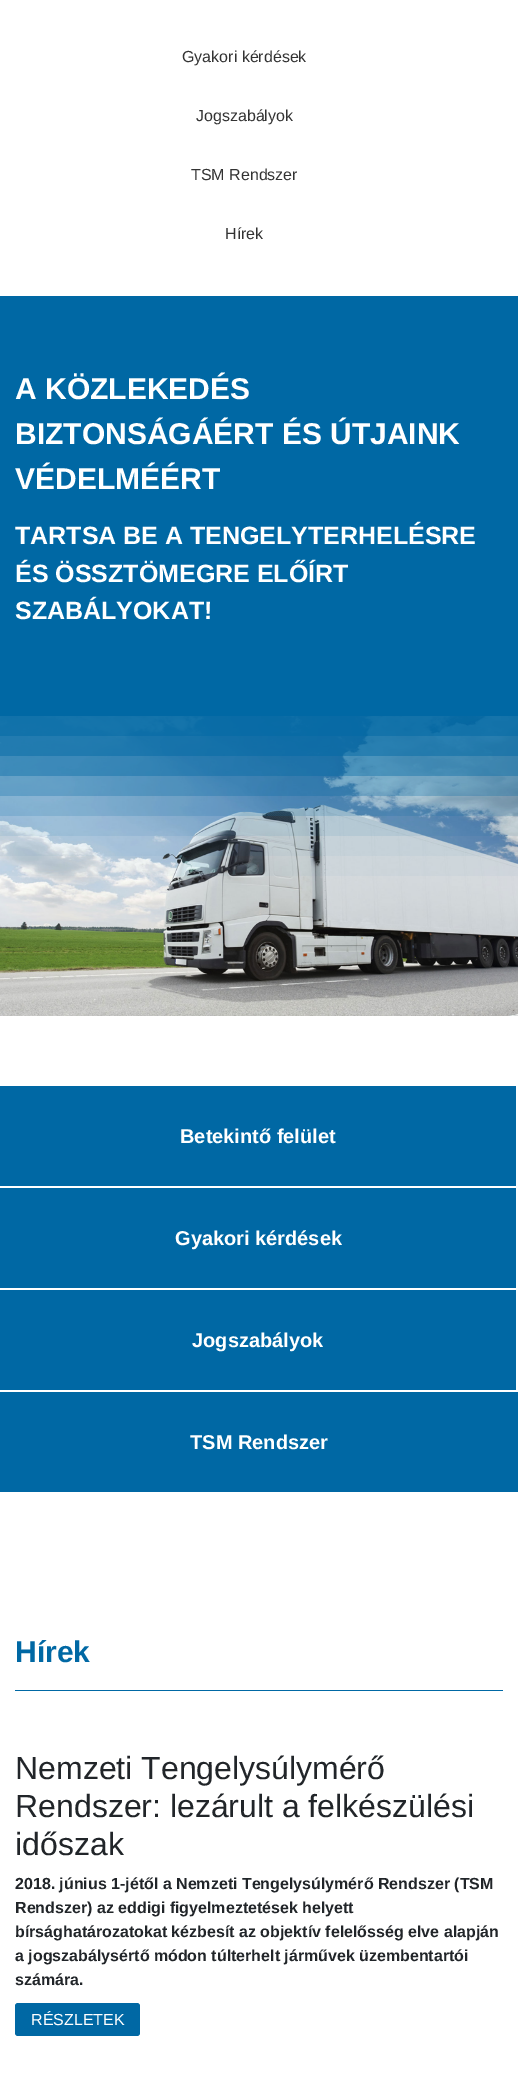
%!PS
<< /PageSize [518 2074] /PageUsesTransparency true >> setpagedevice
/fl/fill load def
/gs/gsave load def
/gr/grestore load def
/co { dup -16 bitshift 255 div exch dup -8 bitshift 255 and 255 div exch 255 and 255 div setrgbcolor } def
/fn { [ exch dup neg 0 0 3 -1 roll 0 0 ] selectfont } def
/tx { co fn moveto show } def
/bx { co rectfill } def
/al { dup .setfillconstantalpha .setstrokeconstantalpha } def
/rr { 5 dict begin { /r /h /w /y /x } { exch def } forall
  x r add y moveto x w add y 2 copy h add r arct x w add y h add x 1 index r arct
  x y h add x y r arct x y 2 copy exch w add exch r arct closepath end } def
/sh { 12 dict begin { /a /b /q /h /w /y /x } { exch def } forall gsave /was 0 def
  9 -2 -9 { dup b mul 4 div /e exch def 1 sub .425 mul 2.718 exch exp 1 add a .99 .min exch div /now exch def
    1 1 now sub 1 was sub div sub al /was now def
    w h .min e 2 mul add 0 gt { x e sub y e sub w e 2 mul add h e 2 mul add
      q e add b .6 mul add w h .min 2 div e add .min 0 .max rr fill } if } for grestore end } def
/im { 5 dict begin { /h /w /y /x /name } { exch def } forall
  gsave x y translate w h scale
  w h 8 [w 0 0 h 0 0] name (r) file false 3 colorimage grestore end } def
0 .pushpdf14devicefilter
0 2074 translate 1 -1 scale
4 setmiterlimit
0 0 518 2074 16#FFFFFF bx
(media/1.raw) 0 716 518 300 im
gs
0 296 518 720 rectclip
16#0068A4 co
-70 226 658 560 0 40 1 sh
gr
0 296 518 420 16#0068A4 bx
0 1086 516 100 16#0068A4 bx
0 1188 516 100 16#0068A4 bx
0 1290 516 100 16#0068A4 bx
0 1392 518 100 16#0068A4 bx
15 1690 488 1 16#0068A4 bx
15 2003 125 33 3 rr fl
(Gyakori kérdések) 182 62 /LiberationSans-Regular 16 16#333333 tx
(Jogszabályok) 196 121 /LiberationSans-Regular 16 16#333333 tx
(TSM Rendszer) 191 180 /LiberationSans-Regular 16 16#333333 tx
(Hírek) 225 239 /LiberationSans-Regular 16 16#333333 tx
(A KÖZLEKEDÉS) 15 399 /LiberationSans-Bold 30 16#FFFFFF tx
(BIZTONSÁGÁÉRT ÉS ÚTJAINK) 15 444 /LiberationSans-Bold 30 16#FFFFFF tx
(VÉDELMÉÉRT) 15 489 /LiberationSans-Bold 30 16#FFFFFF tx
(TARTSA BE A TENGELYTERHELÉSRE) 15 544 /LiberationSans-Bold 25 16#FFFFFF tx
(ÉS ÖSSZTÖMEGRE ELŐÍRT) 15 582 /LiberationSans-Bold 25 16#FFFFFF tx
(SZABÁLYOKAT!) 15 619 /LiberationSans-Bold 25 16#FFFFFF tx
(Betekintő felület) 180 1143 /LiberationSans-Bold 20 16#FFFFFF tx
(Gyakori kérdések) 175 1245 /LiberationSans-Bold 20 16#FFFFFF tx
(Jogszabályok) 192 1347 /LiberationSans-Bold 20 16#FFFFFF tx
(TSM Rendszer) 190 1449 /LiberationSans-Bold 20 16#FFFFFF tx
(Hírek) 15 1662 /LiberationSans-Bold 30 16#0068A4 tx
(Nemzeti Tengelysúlymérő) 15 1779 /LiberationSans-Regular 32 16#212529 tx
(Rendszer: lezárult a felkészülési) 15 1817 /LiberationSans-Regular 32 16#212529 tx
(időszak) 15 1855 /LiberationSans-Regular 32 16#212529 tx
(2018. június 1-jétől a Nemzeti Tengelysúlymérő Rendszer \(TSM) 15 1889 /LiberationSans-Bold 16 16#212529 tx
(Rendszer\) az eddigi figyelmeztetések helyett) 15 1913 /LiberationSans-Bold 16 16#212529 tx
(bírsághatározatokat kézbesít az objektív felelősség elve alapján) 15 1937 /LiberationSans-Bold 16 16#212529 tx
(a jogszabálysértő módon túlterhelt járművek üzembentartói) 15 1961 /LiberationSans-Bold 16 16#212529 tx
(számára.) 15 1985 /LiberationSans-Bold 16 16#212529 tx
(RÉSZLETEK) 31 2025 /LiberationSans-Regular 16 16#FFFFFF tx
.poppdf14devicefilter showpage
